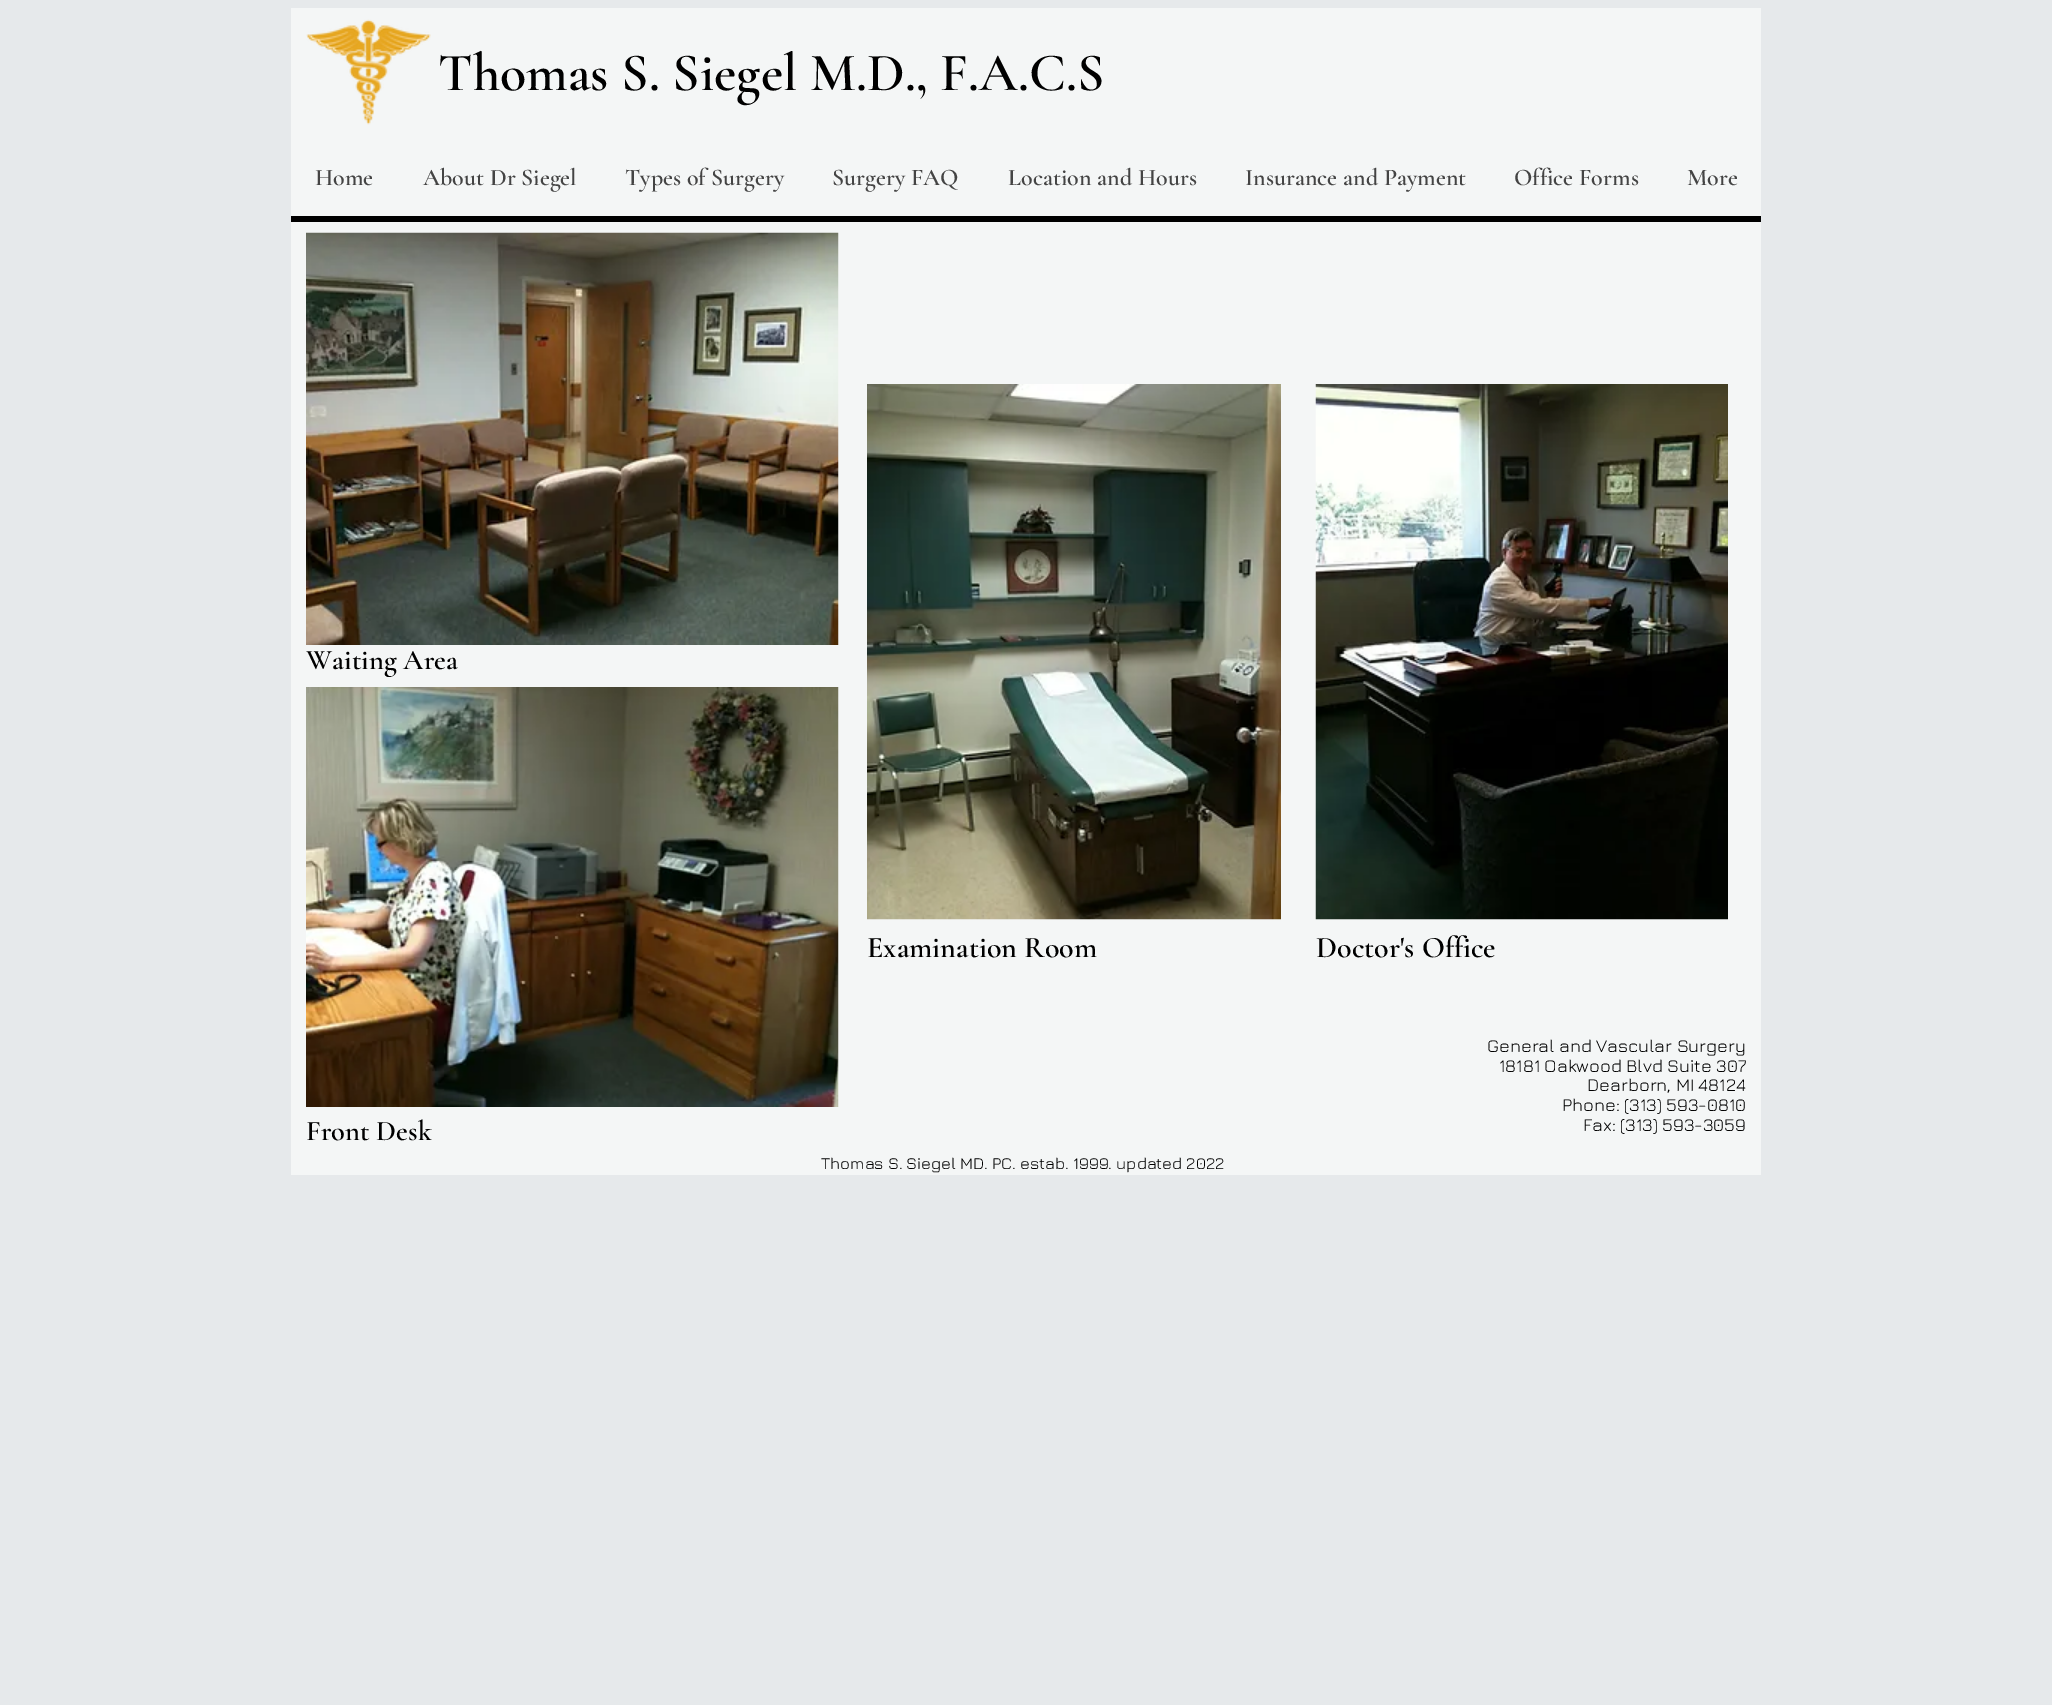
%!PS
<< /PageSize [2052 1705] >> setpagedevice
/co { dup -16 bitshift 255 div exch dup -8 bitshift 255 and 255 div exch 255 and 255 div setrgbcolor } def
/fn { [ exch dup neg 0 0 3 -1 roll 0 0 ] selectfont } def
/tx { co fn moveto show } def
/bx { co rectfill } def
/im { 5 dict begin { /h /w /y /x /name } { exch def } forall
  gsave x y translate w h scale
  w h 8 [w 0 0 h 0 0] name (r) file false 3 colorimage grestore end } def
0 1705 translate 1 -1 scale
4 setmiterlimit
0 0 2052 1705 16#E6E9EB bx
291 8 1470 1167 16#F4F6F6 bx
(media/1.raw) 306 19 125 106 im
291 216 1470 6 16#000000 bx
(media/2.raw) 306 232 533 413 im
(media/3.raw) 867 384 414 536 im
(media/4.raw) 1315 384 413 536 im
(media/5.raw) 306 687 533 420 im
(Thomas S. Siegel M.D., F.A.C.S) 438 90 /CormorantGaramond-SemiBold 54 16#000000 tx
(Home) 315 185 /CormorantGaramond-SemiBold 24 16#444444 tx
(About Dr Siegel) 423 185 /CormorantGaramond-SemiBold 24 16#444444 tx
(Types of Surgery) 625 185 /CormorantGaramond-SemiBold 24 16#444444 tx
(Surgery FAQ) 832 185 /CormorantGaramond-SemiBold 24 16#444444 tx
(Location and Hours) 1008 185 /CormorantGaramond-SemiBold 24 16#444444 tx
(Insurance and Payment) 1245 185 /CormorantGaramond-SemiBold 24 16#444444 tx
(Office Forms) 1514 185 /CormorantGaramond-SemiBold 24 16#444444 tx
(More) 1687 185 /CormorantGaramond-SemiBold 24 16#444444 tx
(General and Vascular Surgery) 1487 1052 /Jura-Regular 18 16#000000 tx
(18181 Oakwood Blvd Suite 307) 1499 1072 /Jura-Regular 18 16#000000 tx
(Dearborn, MI 48124) 1587 1091 /Jura-Regular 18 16#000000 tx
(Phone: \(313\) 593-0810) 1562 1111 /Jura-Regular 18 16#000000 tx
(Fax: \(313\) 593-3059) 1583 1131 /Jura-Regular 18 16#000000 tx
(Thomas S. Siegel MD. PC. estab. 1999. updated 2022) 821 1169 /Jura-Regular 16.5 16#000000 tx
(Waiting Area) 306 669 /CormorantGaramond-SemiBold 28.5 16#000000 tx
(Examination Room) 867 957 /CormorantGaramond-SemiBold 30 16#000000 tx
(Doctor's Office) 1316 957 /CormorantGaramond-SemiBold 30 16#000000 tx
(Front Desk) 306 1140 /CormorantGaramond-SemiBold 28.5 16#000000 tx
showpage
